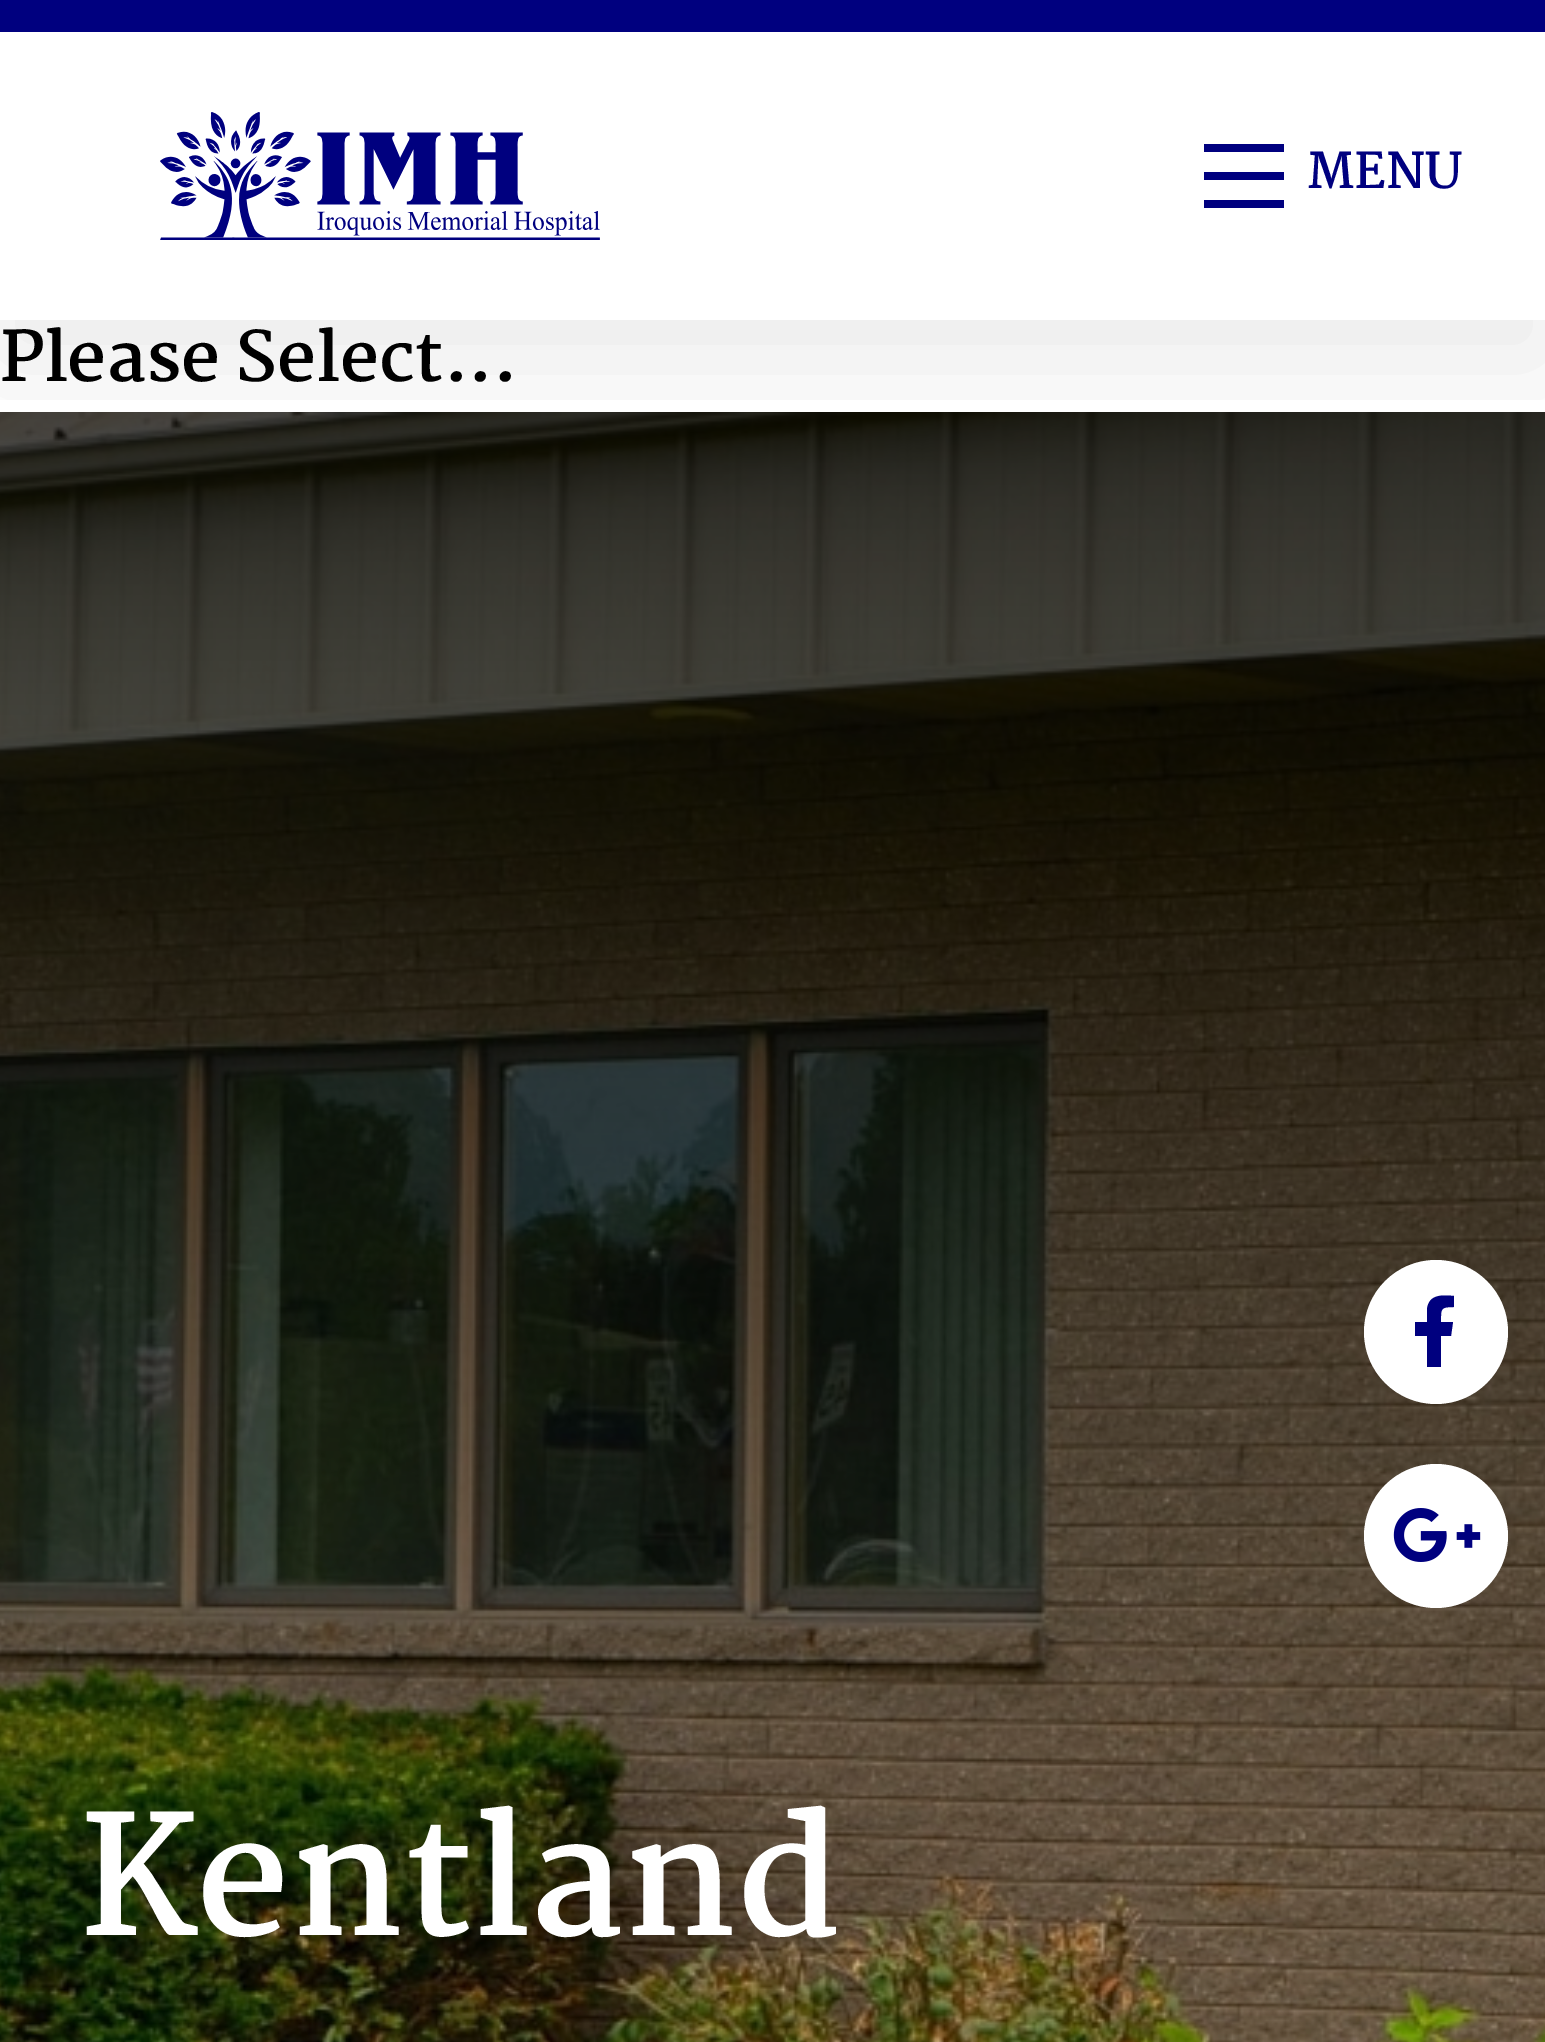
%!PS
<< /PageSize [1545 2042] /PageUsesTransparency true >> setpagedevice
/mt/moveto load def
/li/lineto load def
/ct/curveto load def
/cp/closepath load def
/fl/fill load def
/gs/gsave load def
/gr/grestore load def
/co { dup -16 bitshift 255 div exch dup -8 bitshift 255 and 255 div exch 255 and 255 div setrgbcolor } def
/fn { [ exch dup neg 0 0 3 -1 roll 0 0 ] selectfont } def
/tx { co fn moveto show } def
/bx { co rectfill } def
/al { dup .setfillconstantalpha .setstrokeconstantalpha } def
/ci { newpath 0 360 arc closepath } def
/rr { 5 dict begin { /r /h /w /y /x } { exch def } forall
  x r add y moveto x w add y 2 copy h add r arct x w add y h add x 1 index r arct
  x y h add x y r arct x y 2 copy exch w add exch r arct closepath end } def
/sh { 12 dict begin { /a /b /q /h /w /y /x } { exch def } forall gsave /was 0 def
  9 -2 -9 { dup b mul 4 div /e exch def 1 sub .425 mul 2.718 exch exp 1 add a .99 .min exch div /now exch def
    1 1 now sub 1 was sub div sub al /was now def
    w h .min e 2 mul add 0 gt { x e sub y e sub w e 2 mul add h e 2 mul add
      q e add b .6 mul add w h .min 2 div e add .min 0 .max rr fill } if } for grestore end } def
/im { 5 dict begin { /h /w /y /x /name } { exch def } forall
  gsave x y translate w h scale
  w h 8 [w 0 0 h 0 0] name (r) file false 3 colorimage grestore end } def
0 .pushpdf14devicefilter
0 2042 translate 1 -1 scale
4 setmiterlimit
0 0 1545 2042 16#FFFFFF bx
(media/2.raw) 0 412 1545 1630 im
gs
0 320 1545 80 rectclip
16#000000 co
0 40 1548 320 0 60 .08 sh
gr
0 0 1545 32 16#00007F bx
(media/1.raw) 160 112 440 128 im
1204 144 80 8 16#00007F bx
1204 172 80 8 16#00007F bx
1204 200 80 8 16#00007F bx
16#FFFFFF co
1436 1332 72 ci fl
16#00007F co
1451 1336 mt 1441 1336 li 1441 1367 li 1427 1367 li 1427 1336 li 1415 1336 li 1415 1322 li 1427 1322 li 1427 1309 li 1429 1294 1442 1295 1454 1296 ct 1454 1307 li 1440 1307 1441 1309 1441 1322 ct 1453 1322 li cp fl
16#FFFFFF co
1436 1536 72 ci fl
(media/3.raw) 1393 1508 88 54 im
(MENU) 1307 188 /Martel-Bold 48 16#00007F tx
(Please Select...) 0 381 /Martel-Bold 68 16#000000 tx
(Kentland) 80 1935 /Martel-Bold 163 16#FFFFFF tx
.poppdf14devicefilter showpage
